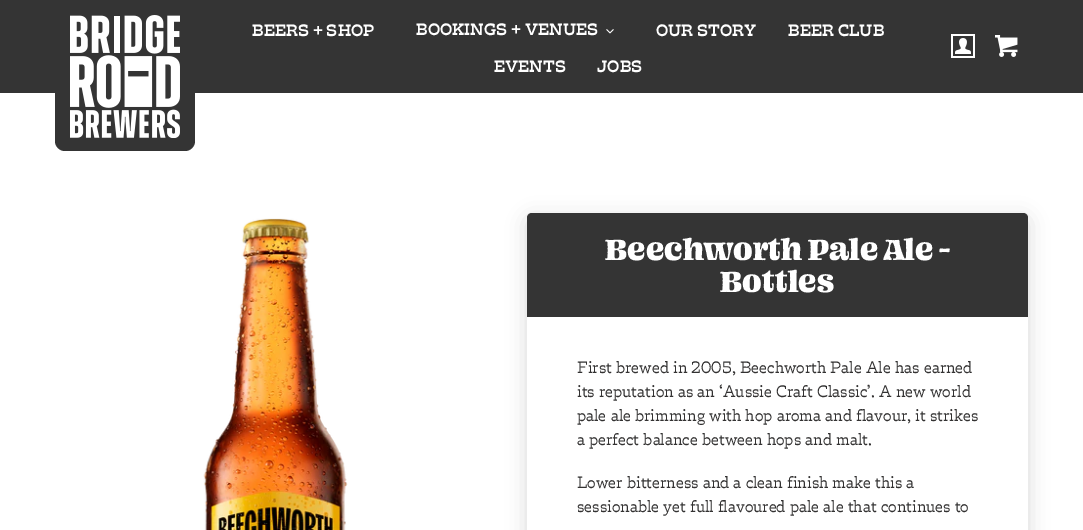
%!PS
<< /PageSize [1083 530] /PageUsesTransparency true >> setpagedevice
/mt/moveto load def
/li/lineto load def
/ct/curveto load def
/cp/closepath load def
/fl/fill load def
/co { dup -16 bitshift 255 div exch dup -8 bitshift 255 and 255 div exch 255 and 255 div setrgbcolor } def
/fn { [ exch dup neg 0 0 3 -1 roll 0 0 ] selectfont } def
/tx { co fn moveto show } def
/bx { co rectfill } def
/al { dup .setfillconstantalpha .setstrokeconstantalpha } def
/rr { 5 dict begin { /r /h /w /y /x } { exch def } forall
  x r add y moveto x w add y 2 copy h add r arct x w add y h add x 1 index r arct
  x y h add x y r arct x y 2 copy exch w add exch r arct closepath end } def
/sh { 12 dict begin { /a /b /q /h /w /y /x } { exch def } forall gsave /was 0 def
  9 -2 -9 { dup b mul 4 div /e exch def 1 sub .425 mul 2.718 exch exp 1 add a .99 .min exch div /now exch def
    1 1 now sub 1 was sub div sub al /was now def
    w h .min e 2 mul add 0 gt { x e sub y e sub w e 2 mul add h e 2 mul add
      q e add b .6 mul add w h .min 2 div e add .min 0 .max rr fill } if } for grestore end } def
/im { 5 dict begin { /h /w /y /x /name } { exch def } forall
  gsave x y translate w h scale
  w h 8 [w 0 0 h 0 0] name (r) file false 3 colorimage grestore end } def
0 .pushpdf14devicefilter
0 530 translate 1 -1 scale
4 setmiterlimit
0 0 1083 530 16#FFFFFF bx
0 0 1083 93 16#343434 bx
55 0 mt 195 0 li 195 141 li 195 146.5 190.5 151 185 151 ct 65 151 li 59.5 151 55 146.5 55 141 ct cp fl
(media/1.raw) 70 15 110 123 im
(media/2.raw) 606 29 8 5 im
(media/3.raw) 951 34 24 24 im
(media/4.raw) 995 35 23 22 im
(media/5.raw) 203 218 145 312 im
16#000000 co
527 218 501 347 5 10 .15 sh
16#FFFFFF co
527 213 501 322 5 rr fl
16#343434 co
532 213 mt 1023 213 li 1026 213 1028 215 1028 218 ct 1028 317 li 527 317 li 527 218 li 527 215 529 213 532 213 ct cp fl
(BEERS + SHOP) 252 36 /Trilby-Bold 16 16#FFFFFF tx
(BOOKINGS + VENUES) 416 35 /Trilby-Bold 16 16#FFFFFF tx
(OUR STORY) 656 36 /Trilby-Bold 16 16#FFFFFF tx
(BEER CLUB) 788 36 /Trilby-Bold 16 16#FFFFFF tx
(EVENTS) 494 72 /Trilby-Bold 16 16#FFFFFF tx
(JOBS) 597 72 /Trilby-Bold 16 16#FFFFFF tx
(Beechworth Pale Ale -) 605 260 /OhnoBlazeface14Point-ExtraLight 32 16#FFFFFF tx
(Bottles) 720 292 /OhnoBlazeface14Point-ExtraLight 32 16#FFFFFF tx
(First brewed in 2005, Beechworth Pale Ale has earned) 577 373 /Trilby-Regular 16 16#333232 tx
(its reputation as an ‘Aussie Craft Classic’. A new world) 577 397 /Trilby-Regular 16 16#333232 tx
(pale ale brimming with hop aroma and flavour, it strikes) 577 421 /Trilby-Regular 16 16#333232 tx
(a perfect balance between hops and malt.) 577 445 /Trilby-Regular 16 16#333232 tx
(Lower bitterness and a clean finish make this a) 577 488 /Trilby-Regular 16 16#333232 tx
(sessionable yet full flavoured pale ale that continues to) 577 512 /Trilby-Regular 16 16#333232 tx
.poppdf14devicefilter showpage
